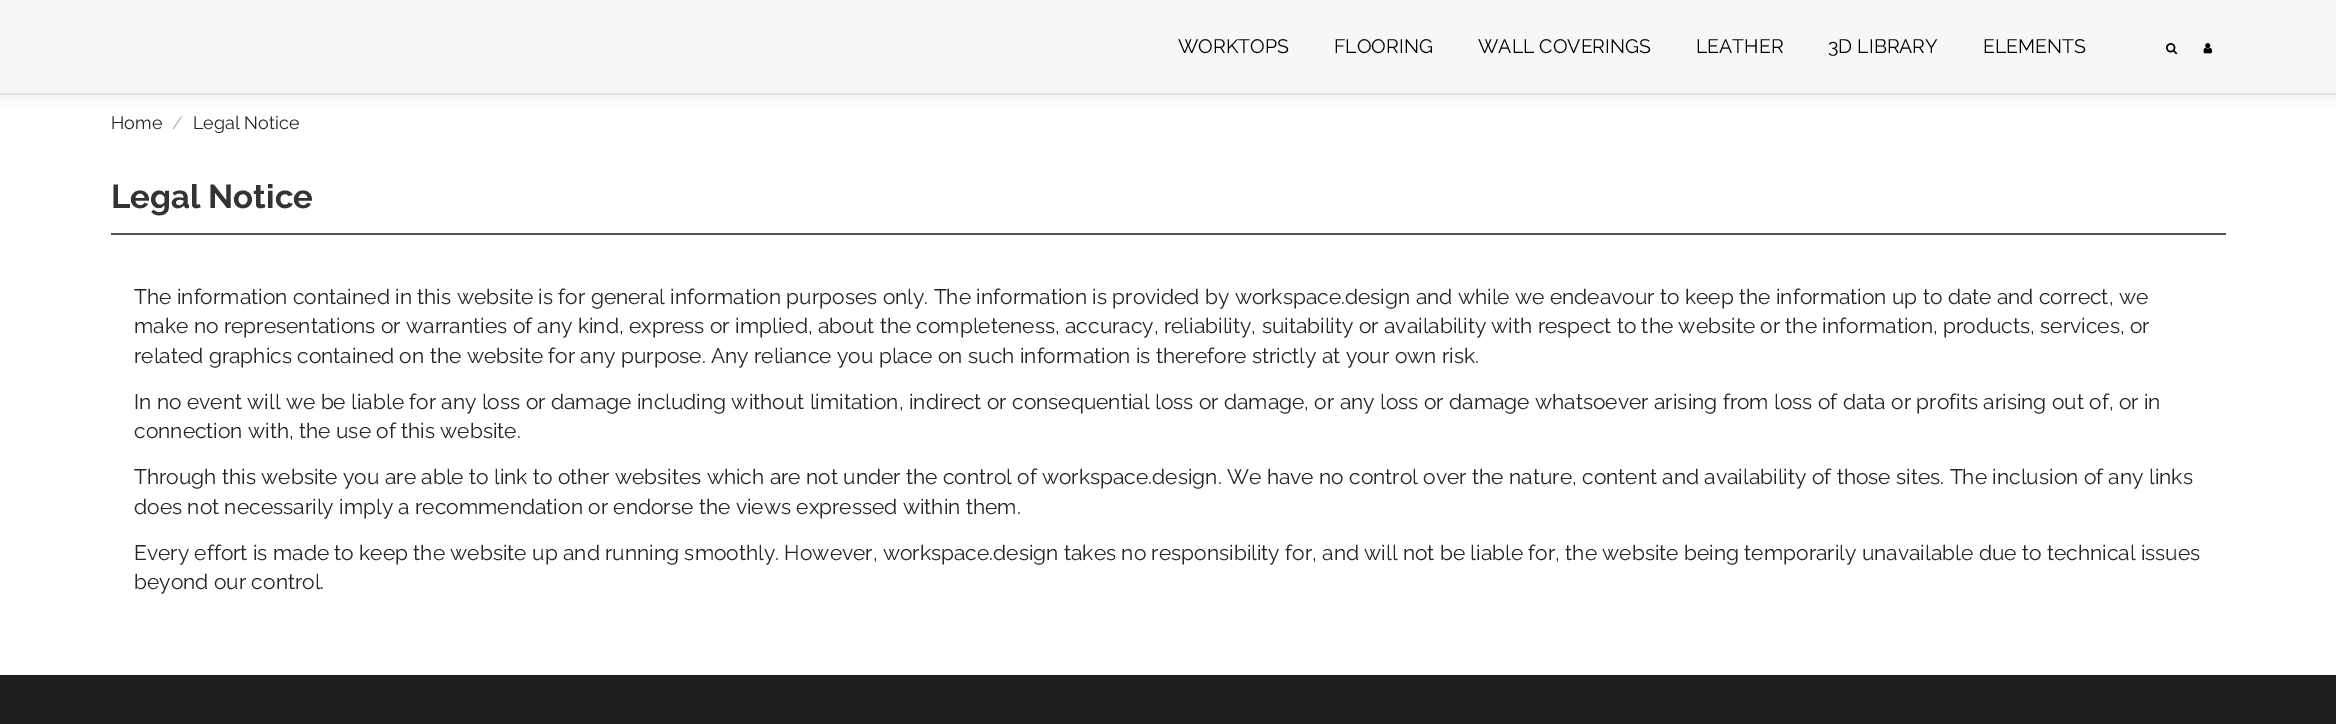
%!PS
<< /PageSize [2336 724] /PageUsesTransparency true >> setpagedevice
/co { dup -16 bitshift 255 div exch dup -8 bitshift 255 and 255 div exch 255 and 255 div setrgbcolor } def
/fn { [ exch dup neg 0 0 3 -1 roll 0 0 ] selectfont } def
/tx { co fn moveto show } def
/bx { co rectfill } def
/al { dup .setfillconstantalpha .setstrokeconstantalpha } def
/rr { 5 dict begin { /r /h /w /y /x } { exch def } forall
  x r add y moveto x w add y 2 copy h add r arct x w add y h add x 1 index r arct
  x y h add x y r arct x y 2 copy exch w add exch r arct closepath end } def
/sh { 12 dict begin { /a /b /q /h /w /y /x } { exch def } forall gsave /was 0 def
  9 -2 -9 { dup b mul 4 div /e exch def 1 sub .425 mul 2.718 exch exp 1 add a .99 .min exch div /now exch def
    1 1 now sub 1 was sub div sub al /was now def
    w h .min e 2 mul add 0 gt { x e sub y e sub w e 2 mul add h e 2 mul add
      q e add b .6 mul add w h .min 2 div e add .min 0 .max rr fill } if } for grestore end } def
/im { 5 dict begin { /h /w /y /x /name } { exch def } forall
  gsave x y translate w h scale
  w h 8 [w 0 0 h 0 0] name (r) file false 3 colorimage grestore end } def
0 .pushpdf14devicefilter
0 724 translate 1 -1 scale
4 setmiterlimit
0 0 2336 724 16#FFFFFF bx
16#3D3939 co
0 -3 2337 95 0 8 .17 sh
0 0 2336 93 16#F7F7F5 bx
0 93 2336 2 16#E3E3E3 bx
(media/1.raw) 2166 43 12 12 im
(media/2.raw) 2203 43 10 11 im
111 233 2115 2 16#595050 bx
0 675 2336 49 16#1F1F1F bx
(WORKTOPS) 1178 53 /Raleway-Regular 19.5 16#000000 tx
(FLOORING) 1334 53 /Raleway-Regular 19.5 16#000000 tx
(WALL COVERINGS) 1478 53 /Raleway-Regular 19.5 16#000000 tx
(LEATHER) 1696 53 /Raleway-Regular 19.5 16#000000 tx
(3D LIBRARY) 1828 53 /Raleway-Regular 19.5 16#000000 tx
(ELEMENTS) 1983 53 /Raleway-Regular 19.5 16#000000 tx
(Home) 111 129 /Raleway-Regular 18 16#262626 tx
(/) 172 129 /Raleway-Regular 18 16#A8A8A8 tx
(Legal Notice) 193 129 /Raleway-Regular 18 16#262626 tx
(Legal Notice) 111 208 /Raleway-Bold 33 16#333333 tx
(The information contained in this website is for general information purposes only. The information is provided by workspace.design and while we endeavour to keep the information up to date and correct, we) 134 304 /Raleway-Regular 21 16#262626 tx
(make no representations or warranties of any kind, express or implied, about the completeness, accuracy, reliability, suitability or availability with respect to the website or the information, products, services, or) 134 333 /Raleway-Regular 21 16#262626 tx
(related graphics contained on the website for any purpose. Any reliance you place on such information is therefore strictly at your own risk.) 134 363 /Raleway-Regular 21 16#262626 tx
(In no event will we be liable for any loss or damage including without limitation, indirect or consequential loss or damage, or any loss or damage whatsoever arising from loss of data or profits arising out of, or in) 134 409 /Raleway-Regular 21 16#262626 tx
(connection with, the use of this website.) 134 438 /Raleway-Regular 21 16#262626 tx
(Through this website you are able to link to other websites which are not under the control of workspace.design. We have no control over the nature, content and availability of those sites. The inclusion of any links) 134 484 /Raleway-Regular 21 16#262626 tx
(does not necessarily imply a recommendation or endorse the views expressed within them.) 134 514 /Raleway-Regular 21 16#262626 tx
(Every effort is made to keep the website up and running smoothly. However, workspace.design takes no responsibility for, and will not be liable for, the website being temporarily unavailable due to technical issues) 134 560 /Raleway-Regular 21 16#262626 tx
(beyond our control.) 134 589 /Raleway-Regular 21 16#262626 tx
.poppdf14devicefilter showpage
